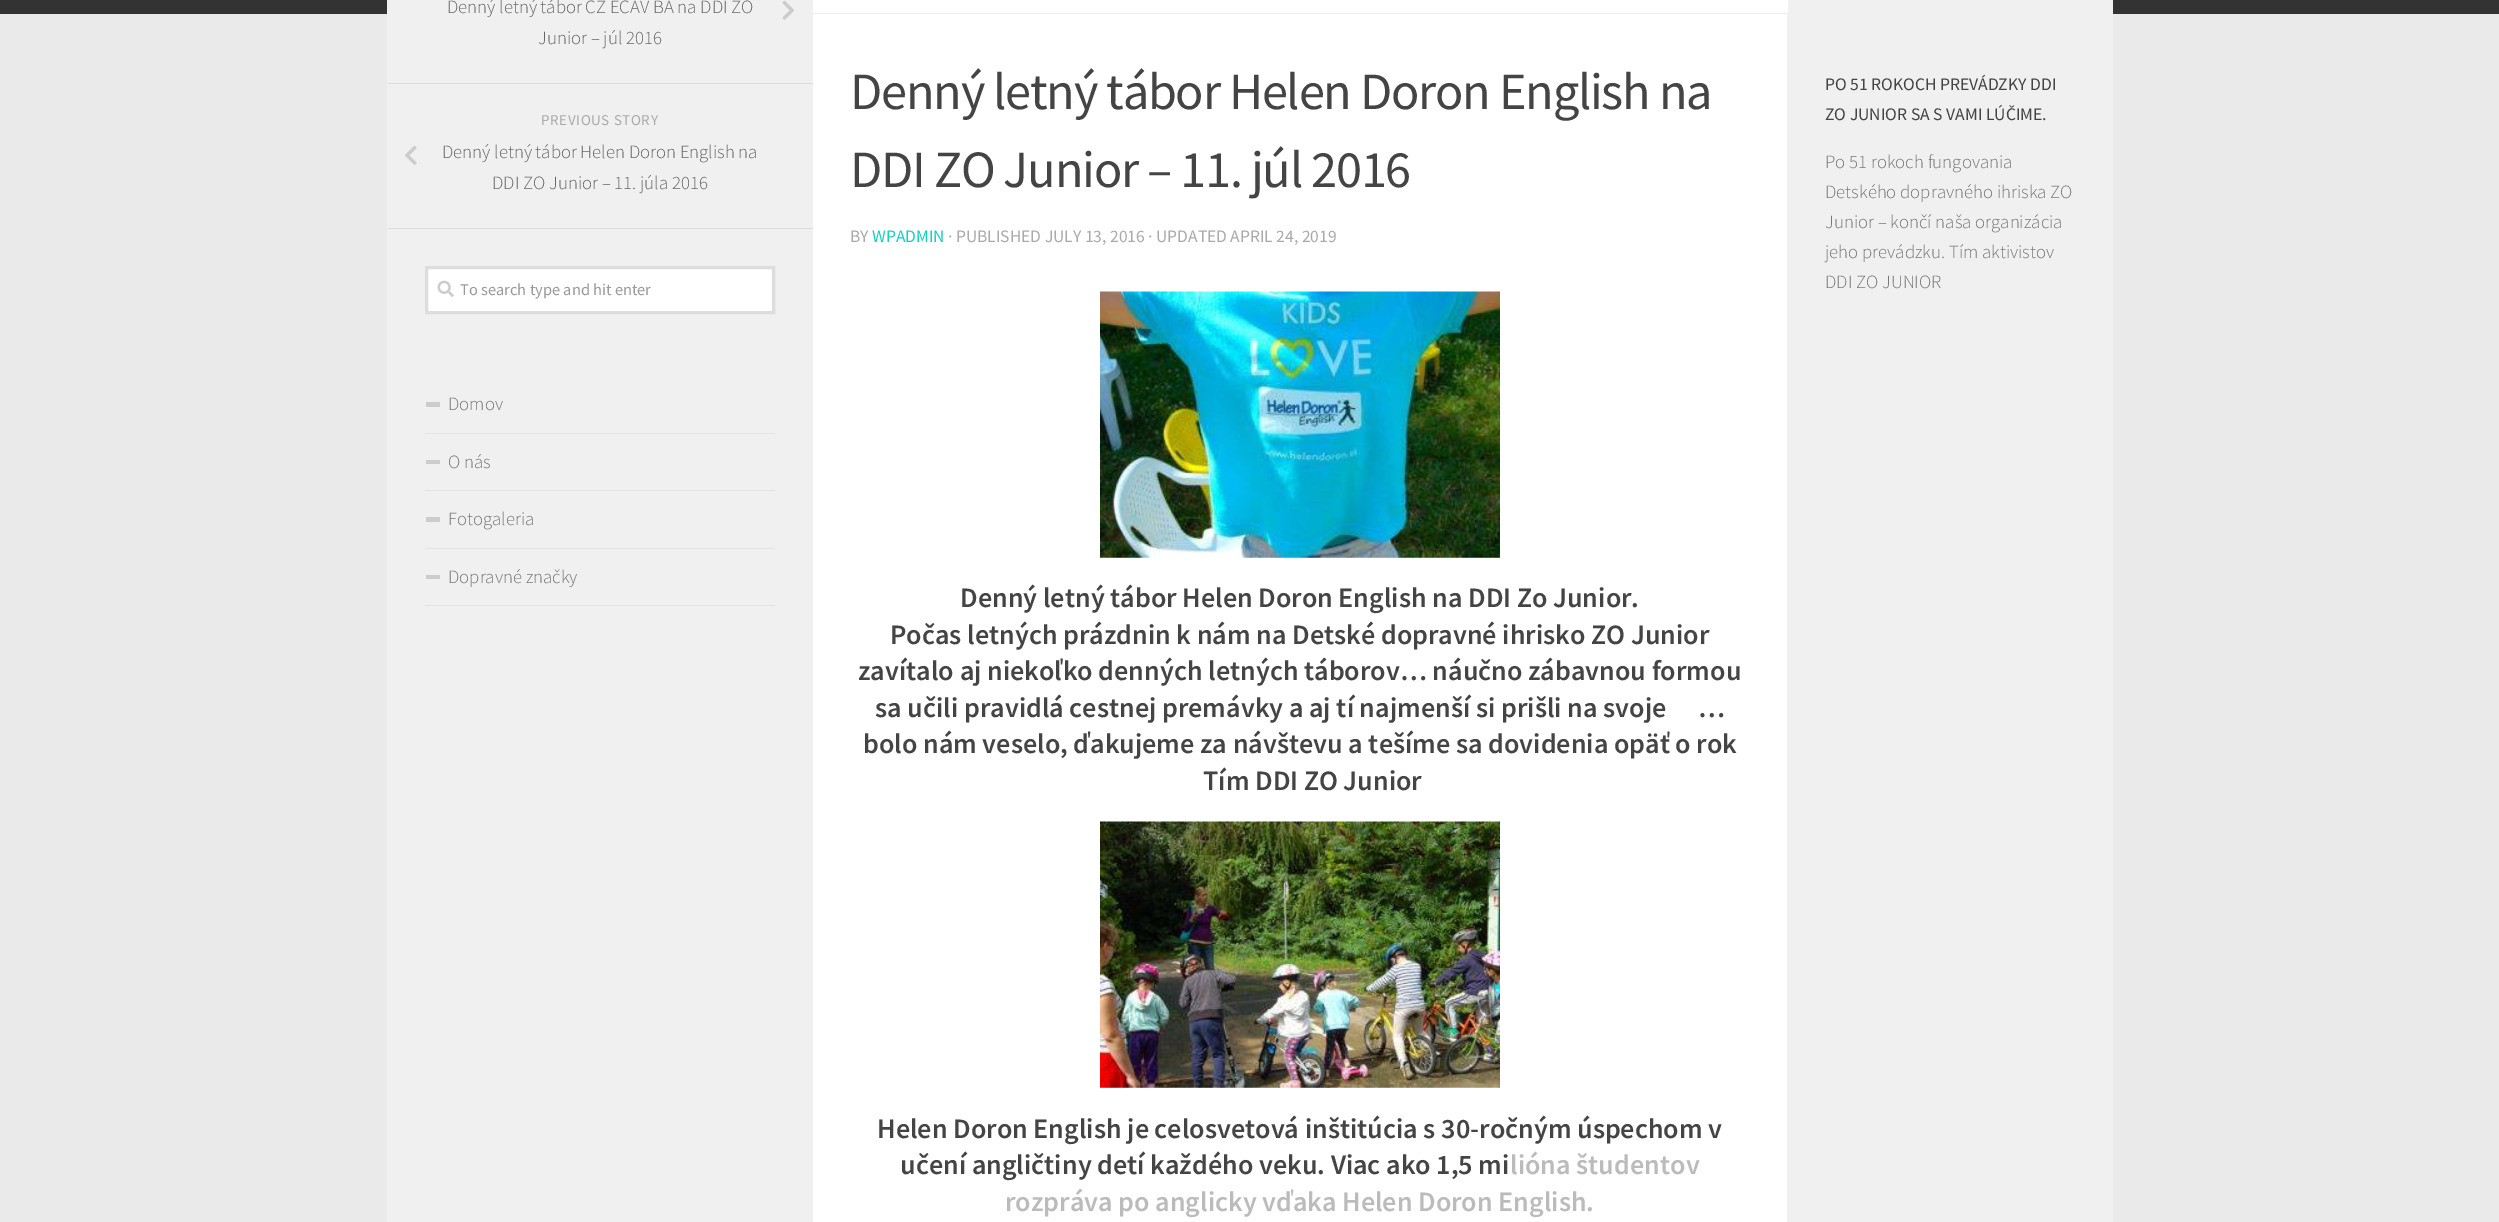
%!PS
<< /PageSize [2499 1222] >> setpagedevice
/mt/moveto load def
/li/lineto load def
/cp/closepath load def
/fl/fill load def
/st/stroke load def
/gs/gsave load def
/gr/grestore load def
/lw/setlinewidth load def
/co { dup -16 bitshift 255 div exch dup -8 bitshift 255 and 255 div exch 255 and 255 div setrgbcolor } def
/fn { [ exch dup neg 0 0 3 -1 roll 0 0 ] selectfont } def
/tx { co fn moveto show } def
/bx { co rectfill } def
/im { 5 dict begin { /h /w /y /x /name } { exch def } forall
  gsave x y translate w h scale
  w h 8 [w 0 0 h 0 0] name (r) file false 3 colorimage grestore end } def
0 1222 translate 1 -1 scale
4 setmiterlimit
0 0 2499 1222 16#EAEAEA bx
0 0 2499 14 16#333333 bx
813 14 974 1208 16#FFFFFF bx
1787 0 326 1222 16#F0F0F0 bx
387 0 426 1222 16#F0F0F0 bx
388 83 425 1 16#DDDDDD bx
(media/1.raw) 782 0 12 20 im
388 228 425 1 16#DDDDDD bx
(media/2.raw) 405 145 12 20 im
16#FFFFFF co
426.5 267.5 mt 773.5 267.5 li 773.5 312.5 li 426.5 312.5 li cp gs fl gr
16#DDDDDD co
3 lw
st
(media/3.raw) 437 280 17 17 im
425 433 350 1 16#E4E4E4 bx
426 402 14 5 16#CCCCCC bx
425 490 350 1 16#E4E4E4 bx
426 460 14 4 16#CCCCCC bx
425 548 350 1 16#E4E4E4 bx
426 517 14 5 16#CCCCCC bx
425 605 350 1 16#E4E4E4 bx
426 575 14 4 16#CCCCCC bx
813 0 975 13 16#FFFFFF bx
813 13 975 1 16#EEEEEE bx
(media/4.raw) 1100 291 400 267 im
(media/5.raw) 1100 821 400 267 im
(Denný letný tábor CZ ECAV BA na DDI ZO) 447 13 /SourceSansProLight-Light 18.75 16#666666 tx
(Junior – júl 2016) 538 44 /SourceSansProLight-Light 18.75 16#666666 tx
/SourceSansPro-Regular 15 fn
16#AAAAAA co
541 125 mt .6 0 (PREVIOUS STORY) ashow
(Denný letný tábor Helen Doron English na) 442 158 /SourceSansProLight-Light 18.75 16#666666 tx
(DDI ZO Junior – 11. júla 2016) 492 189 /SourceSansProLight-Light 18.75 16#666666 tx
(To search type and hit enter) 460 295 /SourceSansPro-Regular 16.4 16#999999 tx
(Domov) 448 410 /SourceSansProLight-Light 18.75 16#777777 tx
(O nás) 448 468 /SourceSansProLight-Light 18.75 16#777777 tx
(Fotogaleria) 448 525 /SourceSansProLight-Light 18.75 16#777777 tx
(Dopravné značky) 448 583 /SourceSansProLight-Light 18.75 16#777777 tx
/SourceSansPro-Regular 52.4 fn
16#444444 co
850 109 mt -1.25 0 (Denný letný tábor Helen Doron English na) ashow
850 187 mt -1.25 0 (DDI ZO Junior – 11. júl 2016) ashow
(BY) 850 242 /SourceSansPro-Regular 17.5 16#AAAAAA tx
(WPADMIN) 872 242 /SourceSansPro-Regular 17.5 16#16CFC1 tx
(· PUBLISHED JULY 13, 2016 · UPDATED APRIL 24, 2019) 948 242 /SourceSansPro-Regular 17.5 16#AAAAAA tx
(Denný letný tábor Helen Doron English na DDI Zo Junior.) 960 607 /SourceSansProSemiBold-SemiBold 28.1 16#444444 tx
(Počas letných prázdnin k nám na Detské dopravné ihrisko ZO Junior) 890 644 /SourceSansProSemiBold-SemiBold 28.1 16#444444 tx
(zavítalo aj niekoľko denných letných táborov… náučno zábavnou formou) 858 680 /SourceSansProSemiBold-SemiBold 28.1 16#444444 tx
(sa učili pravidlá cestnej premávky a aj tí najmenší si prišli na svoje) 875 717 /SourceSansProSemiBold-SemiBold 28.1 16#444444 tx
(…) 1698 717 /SourceSansProSemiBold-SemiBold 28.1 16#444444 tx
(bolo nám veselo, ďakujeme za návštevu a tešíme sa dovidenia opäť o rok) 863 753 /SourceSansProSemiBold-SemiBold 28.1 16#444444 tx
(Tím DDI ZO Junior) 1203 790 /SourceSansProSemiBold-SemiBold 28.1 16#444444 tx
(Helen Doron English je celosvetová inštitúcia s 30-ročným úspechom v) 877 1138 /SourceSansProSemiBold-SemiBold 28.1 16#444444 tx
(učení angličtiny detí každého veku. Viac ako 1,5 mi) 900 1174 /SourceSansProSemiBold-SemiBold 28.1 16#444444 tx
(lióna študentov) 1510 1174 /SourceSansProSemiBold-SemiBold 28.1 16#BBBBBB tx
(rozpráva po anglicky vďaka Helen Doron English.) 1005 1211 /SourceSansProSemiBold-SemiBold 28.1 16#BBBBBB tx
(PO 51 ROKOCH PREVÁDZKY DDI) 1825 90 /SourceSansPro-Regular 17.6 16#444444 tx
(ZO JUNIOR SA S VAMI LÚČIME.) 1825 120 /SourceSansPro-Regular 17.6 16#444444 tx
(Po 51 rokoch fungovania) 1825 168 /SourceSansProLight-Light 18.75 16#777777 tx
(Detského dopravného ihriska ZO) 1825 198 /SourceSansProLight-Light 18.75 16#777777 tx
(Junior – končí naša organizácia) 1825 228 /SourceSansProLight-Light 18.75 16#777777 tx
(jeho prevádzku. Tím aktivistov) 1825 258 /SourceSansProLight-Light 18.75 16#777777 tx
(DDI ZO JUNIOR) 1825 288 /SourceSansProLight-Light 18.75 16#777777 tx
showpage
